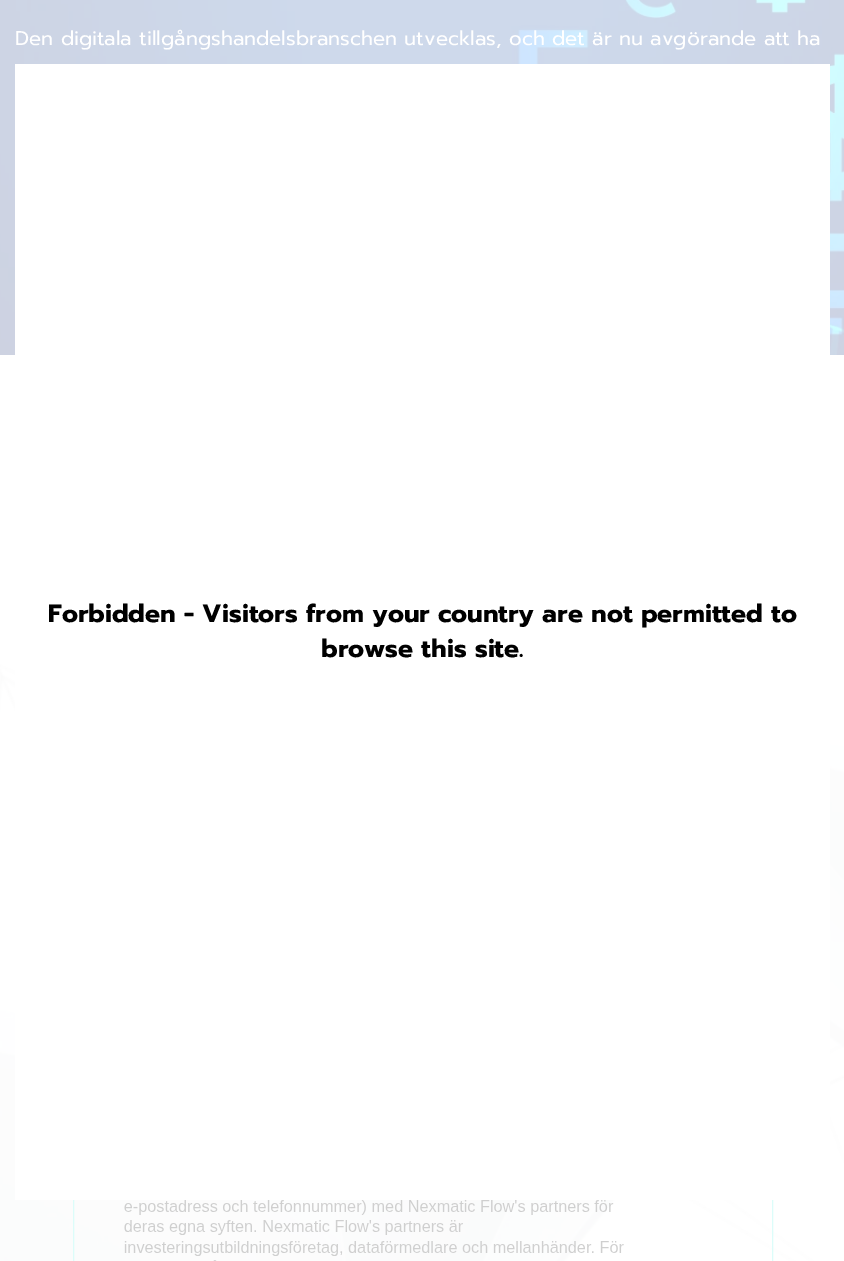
%!PS
<< /PageSize [844 1261] >> setpagedevice
/co { dup -16 bitshift 255 div exch dup -8 bitshift 255 and 255 div exch 255 and 255 div setrgbcolor } def
/fn { [ exch dup neg 0 0 3 -1 roll 0 0 ] selectfont } def
/tx { co fn moveto show } def
/bx { co rectfill } def
/im { 5 dict begin { /h /w /y /x /name } { exch def } forall
  gsave x y translate w h scale
  w h 8 [w 0 0 h 0 0] name (r) file false 3 colorimage grestore end } def
0 1261 translate 1 -1 scale
4 setmiterlimit
0 0 844 1261 16#FFFFFF bx
(media/1.raw) 0 0 844 355 im
(media/2.raw) 0 664 844 597 im
16#DCFDFA co
73.5 651.5 699 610 rectstroke
15 64 815 1136 16#FFFFFF bx
(media/3.raw) 124 1200 500 61 im
(Den digitala tillgångshandelsbranschen utvecklas, och det är nu avgörande att ha) 15 45 /Prompt-Regular 20 16#FFFFFF tx
(Forbidden - Visitors from your country are not permitted to) 48 622 /Prompt-Bold 25 16#000000 tx
(browse this site.) 321 657 /Prompt-Bold 25 16#000000 tx
showpage
